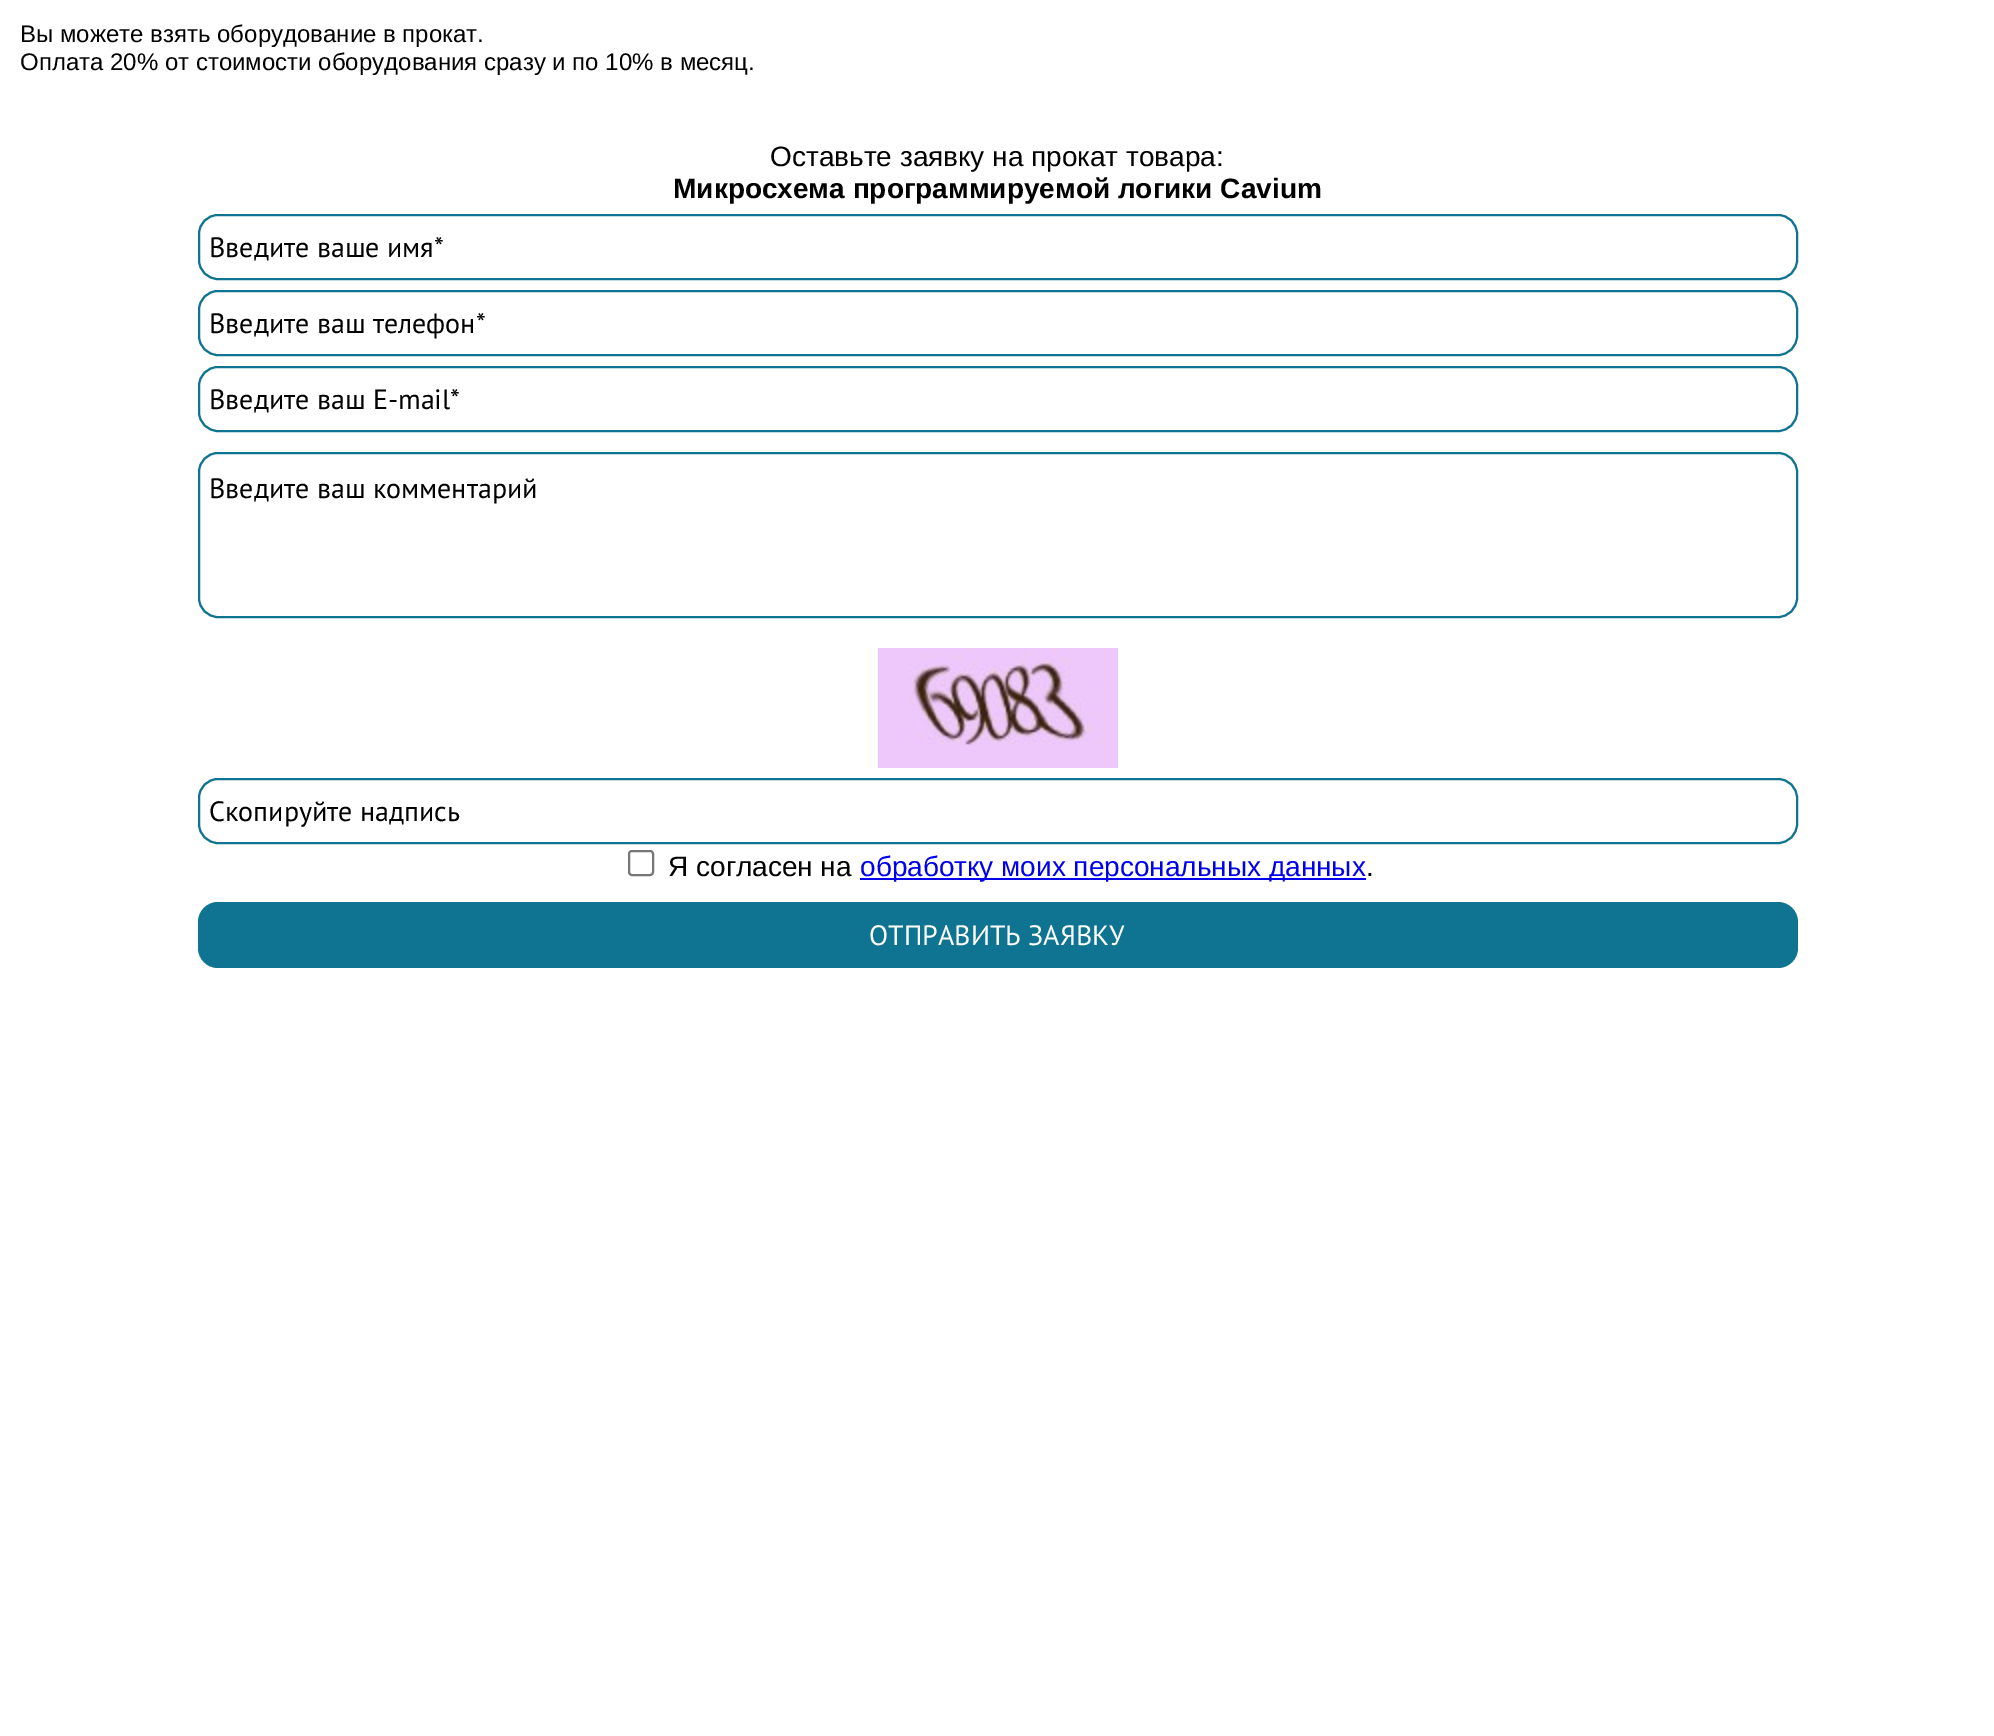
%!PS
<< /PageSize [1994 1736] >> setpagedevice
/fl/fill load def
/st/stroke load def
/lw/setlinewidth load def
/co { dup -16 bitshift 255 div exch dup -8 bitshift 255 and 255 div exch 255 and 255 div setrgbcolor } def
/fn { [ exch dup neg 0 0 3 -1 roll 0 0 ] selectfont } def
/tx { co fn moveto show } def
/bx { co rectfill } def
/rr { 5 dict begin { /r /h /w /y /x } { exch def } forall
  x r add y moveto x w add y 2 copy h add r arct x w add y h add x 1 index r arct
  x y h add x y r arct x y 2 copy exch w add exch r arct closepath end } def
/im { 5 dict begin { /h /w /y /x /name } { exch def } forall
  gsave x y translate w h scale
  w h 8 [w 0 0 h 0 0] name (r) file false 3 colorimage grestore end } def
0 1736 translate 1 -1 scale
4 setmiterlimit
0 0 1994 1736 16#FFFFFF bx
16#0F7491 co
2 lw
199 215 1598 64 19 rr st
199 291 1598 64 19 rr st
199 367 1598 64 19 rr st
199 453 1598 164 19 rr st
(media/1.raw) 878 648 240 120 im
199 779 1598 64 19 rr st
16#767676 co
629 851 24 24 3 rr st
860 878 506 2 16#0000EE bx
16#0F7491 co
198 902 1600 66 20 rr fl
(Вы можете взять оборудование в прокат.) 20 42 /LiberationSans-Regular 24 16#000000 tx
(Оплата 20% от стоимости оборудования сразу и по 10% в месяц.) 20 70 /LiberationSans-Regular 24 16#000000 tx
(Оставьте заявку на прокат товара:) 770 166 /LiberationSans-Regular 28 16#000000 tx
(Микросхема программируемой логики Cavium) 673 198 /LiberationSans-Bold 28 16#000000 tx
(Введите ваше имя*) 209 257 /PTSans-Regular 28 16#000000 tx
(Введите ваш телефон*) 209 333 /PTSans-Regular 28 16#000000 tx
(Введите ваш E-mail*) 209 409 /PTSans-Regular 28 16#000000 tx
(Введите ваш комментарий) 209 498 /PTSans-Regular 28 16#000000 tx
(Скопируйте надпись) 209 821 /PTSans-Regular 28 16#000000 tx
(Я согласен на) 668 876 /LiberationSans-Regular 28 16#000000 tx
(обработку моих персональных данных) 860 876 /LiberationSans-Regular 28 16#0000EE tx
(.) 1366 876 /LiberationSans-Regular 28 16#000000 tx
(ОТПРАВИТЬ ЗАЯВКУ) 869 945 /PTSans-Regular 28 16#FFFFFF tx
showpage
